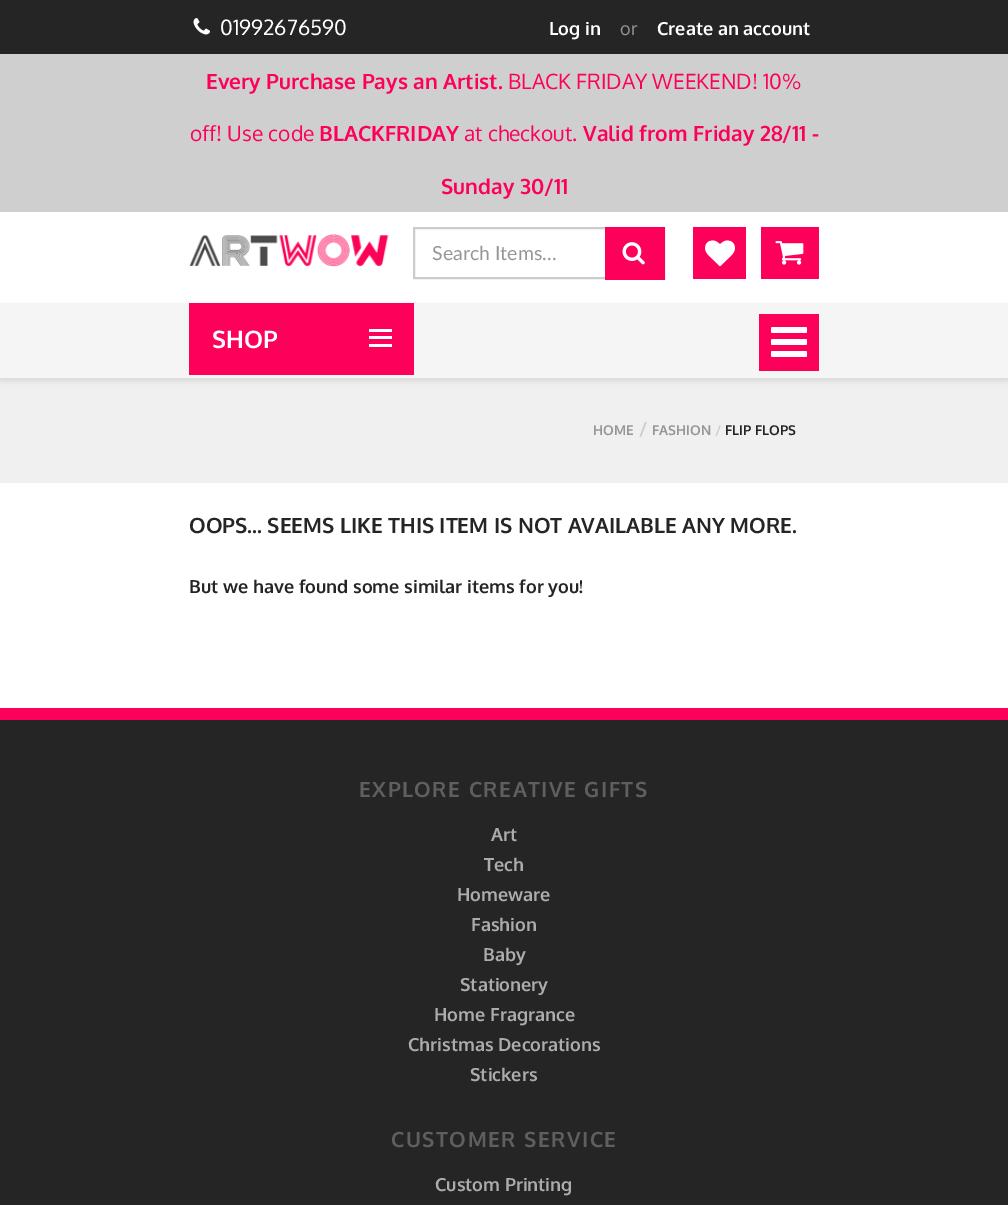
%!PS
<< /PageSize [1008 1205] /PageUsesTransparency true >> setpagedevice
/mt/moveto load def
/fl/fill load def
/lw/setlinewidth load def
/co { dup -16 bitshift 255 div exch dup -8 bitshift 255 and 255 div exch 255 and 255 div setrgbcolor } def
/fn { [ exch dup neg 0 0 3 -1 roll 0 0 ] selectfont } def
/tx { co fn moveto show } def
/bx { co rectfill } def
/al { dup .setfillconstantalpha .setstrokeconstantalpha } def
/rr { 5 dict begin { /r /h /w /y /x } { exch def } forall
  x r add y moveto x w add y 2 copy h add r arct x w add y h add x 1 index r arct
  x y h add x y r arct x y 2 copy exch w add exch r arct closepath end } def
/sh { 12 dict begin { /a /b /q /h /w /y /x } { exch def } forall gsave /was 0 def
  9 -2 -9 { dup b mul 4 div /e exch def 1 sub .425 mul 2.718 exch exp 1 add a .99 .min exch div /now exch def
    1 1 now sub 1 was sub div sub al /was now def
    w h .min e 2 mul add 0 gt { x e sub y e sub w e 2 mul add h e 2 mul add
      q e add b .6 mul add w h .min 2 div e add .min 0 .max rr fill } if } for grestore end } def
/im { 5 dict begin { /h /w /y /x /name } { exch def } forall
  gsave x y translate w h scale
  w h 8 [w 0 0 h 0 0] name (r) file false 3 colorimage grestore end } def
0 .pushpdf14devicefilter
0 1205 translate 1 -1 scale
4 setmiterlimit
0 0 1008 1205 16#FFFFFF bx
0 0 1008 54 16#252525 bx
(media/1.raw) 193 18 17 17 im
0 54 1008 158 16#CFCFCF bx
(media/2.raw) 189 234 200 33 im
16#CCCCCC co
2 lw
414 228 250 50 rectstroke
605 227 60 53 16#FD0059 bx
(media/3.raw) 622 242 23 23 im
693 227 53 52 16#FD0059 bx
(media/4.raw) 705 240 30 27 im
761 227 58 52 16#FD0059 bx
(media/5.raw) 775 241 29 24 im
0 378 1008 105 16#F0F0F0 bx
16#000000 co
0 306 1008 75 0 3 .1 sh
0 303 1008 75 16#F5F5F5 bx
189 303 225 72 16#FD0059 bx
369 329 23 3 16#FFFFFF bx
369 336 23 3 16#FFFFFF bx
369 344 23 3 16#FFFFFF bx
759 314 60 57 16#FD0059 bx
16#FFFFFF co
771 327 36 6 1.5 rr fl
771 339 36 6 1.5 rr fl
771 351 36 6 1.5 rr fl
0 720 1008 485 16#252525 bx
0 708 1008 12 16#FD0059 bx
(01992676590) 220 35 /Oxygen-Regular 21 16#FFFFFF tx
(Log in) 549 35 /Oxygen-Bold 18 16#FFFFFF tx
(or) 620 35 /Oxygen-Regular 18 16#969696 tx
(Create an account) 657 35 /Oxygen-Bold 18 16#FFFFFF tx
(Every Purchase Pays an Artist.) 206 89 /Oxygen-Bold 21 16#FD005A tx
(BLACK FRIDAY WEEKEND! 10%) 508 89 /Oxygen-Regular 21 16#FD005A tx
(off! Use code) 190 141 /Oxygen-Regular 21 16#FD005A tx
(BLACKFRIDAY) 319 141 /Oxygen-Bold 21 16#FD005A tx
(at checkout.) 464 141 /Oxygen-Regular 21 16#FD005A tx
(Valid from Friday 28/11 -) 583 141 /Oxygen-Bold 21 16#FD005A tx
(Sunday 30/11) 441 194 /Oxygen-Bold 21 16#FD005A tx
(Search Items…) 432 260 /Lato-Regular 19.5 16#969696 tx
(SHOP) 212 348 /Oxygen-Bold 24 16#FFFFFF tx
(HOME) 593 435 /Oxygen-Bold 13.5 16#969696 tx
(/) 639 435 /Oxygen-Bold 18 16#CCCCCC tx
(FASHION) 652 435 /Oxygen-Bold 13.5 16#969696 tx
(/) 715 435 /Oxygen-Bold 13.5 16#CCCCCC tx
(FLIP FLOPS) 725 435 /Oxygen-Bold 13.5 16#252525 tx
(OOPS... SEEMS LIKE THIS ITEM IS NOT AVAILABLE ANY MORE.) 189 533 /Oxygen-Bold 21 16#252525 tx
(But we have found some similar items for you!) 189 593 /Oxygen-Bold 18 16#252525 tx
/Oxygen-Bold 21 fn
16#5F5F5F co
359 797 mt 1.5 0 (EXPLORE CREATIVE GIFTS) ashow
(Art) 491 841 /Oxygen-Bold 18 16#ACACAC tx
(Tech) 484 871 /Oxygen-Bold 18 16#ACACAC tx
(Homeware) 457 901 /Oxygen-Bold 18 16#ACACAC tx
(Fashion) 471 931 /Oxygen-Bold 18 16#ACACAC tx
(Baby) 483 961 /Oxygen-Bold 18 16#ACACAC tx
(Stationery) 460 991 /Oxygen-Bold 18 16#ACACAC tx
(Home Fragrance) 434 1021 /Oxygen-Bold 18 16#ACACAC tx
(Christmas Decorations) 408 1051 /Oxygen-Bold 18 16#ACACAC tx
(Stickers) 470 1081 /Oxygen-Bold 18 16#ACACAC tx
/Oxygen-Bold 21 fn
16#5F5F5F co
391 1147 mt 1.5 0 (CUSTOMER SERVICE) ashow
(Custom Printing) 435 1191 /Oxygen-Bold 18 16#ACACAC tx
.poppdf14devicefilter showpage
